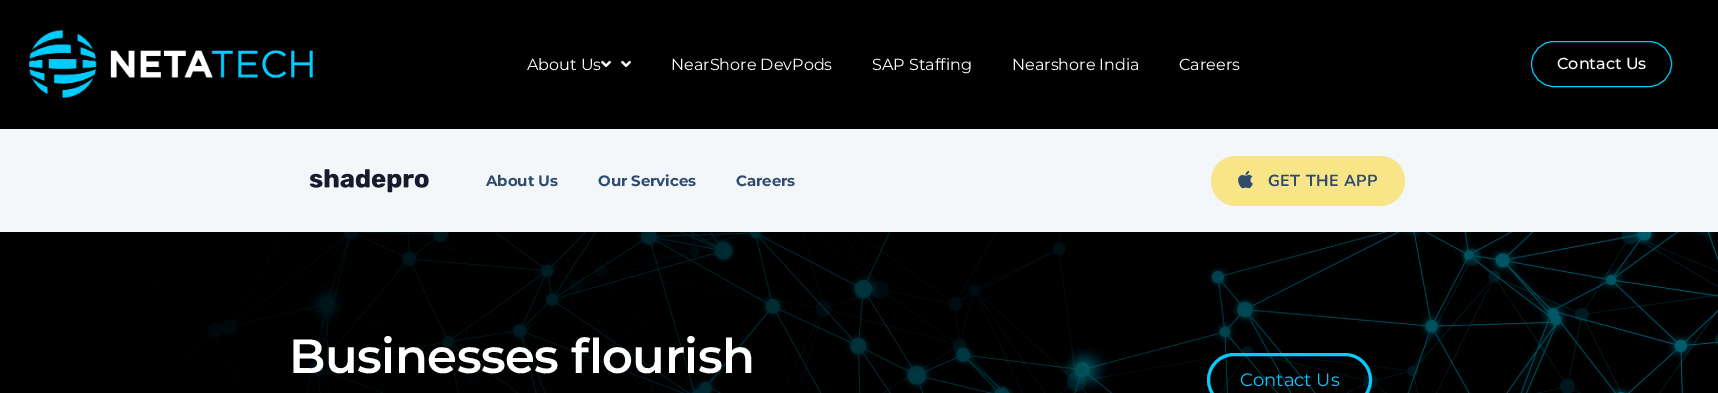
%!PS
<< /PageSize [1718 393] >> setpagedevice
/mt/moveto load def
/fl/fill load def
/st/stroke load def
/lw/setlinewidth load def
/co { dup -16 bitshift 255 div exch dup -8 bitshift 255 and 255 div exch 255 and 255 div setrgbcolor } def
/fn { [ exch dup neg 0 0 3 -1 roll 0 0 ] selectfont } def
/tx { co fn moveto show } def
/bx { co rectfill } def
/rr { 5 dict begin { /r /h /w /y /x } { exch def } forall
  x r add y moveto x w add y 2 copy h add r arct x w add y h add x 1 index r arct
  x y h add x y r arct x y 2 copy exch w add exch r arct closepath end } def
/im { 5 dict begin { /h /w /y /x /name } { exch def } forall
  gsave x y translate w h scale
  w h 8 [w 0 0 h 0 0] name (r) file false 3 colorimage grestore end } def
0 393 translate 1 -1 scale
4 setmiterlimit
0 0 1718 393 16#F4F7FA bx
0 0 1718 129 16#000000 bx
(media/1.raw) 29 30 284 68 im
(media/2.raw) 601 60 10 8 im
(media/2.raw) 621 60 10 8 im
16#00CCFF co
1531.5 41.5 140 45 22.5 rr st
(media/3.raw) 309 169 120 24 im
16#F8E587 co
1211 156 194 50 25 rr fl
(media/4.raw) 1238 170 15 19 im
0 232 1718 161 16#000000 bx
(media/5.raw) 145 232 1573 161 im
16#04CCFC co
3 lw
1208.5 354.5 162 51 25.5 rr st
(About Us) 527 70 /Montserrat-Regular 16 16#FFFFFF tx
(NearShore DevPods) 671 70 /Montserrat-Regular 16 16#FFFFFF tx
(SAP Staffing) 872 70 /Montserrat-Regular 16 16#FFFFFF tx
(Nearshore India) 1012 70 /Montserrat-Regular 16 16#FFFFFF tx
(Careers) 1179 70 /Montserrat-Regular 16 16#FFFFFF tx
(Contact Us) 1557 69 /Montserrat-Medium 16 16#FFFFFF tx
/Montserrat-Bold 15 fn
16#2F4B6E co
486 186 mt -.1 0 (About Us) ashow
598 186 mt -.1 0 (Our Services) ashow
736 186 mt -.1 0 (Careers) ashow
/Nunito-Bold 16 fn
1268 186 mt .5 0 (GET THE APP) ashow
/Montserrat-SemiBold 48 fn
16#FFFFFF co
289 373 mt -.5 0 (Businesses flourish) ashow
(Contact Us) 1240 386 /Montserrat-Regular 18 16#00CCFF tx
showpage
